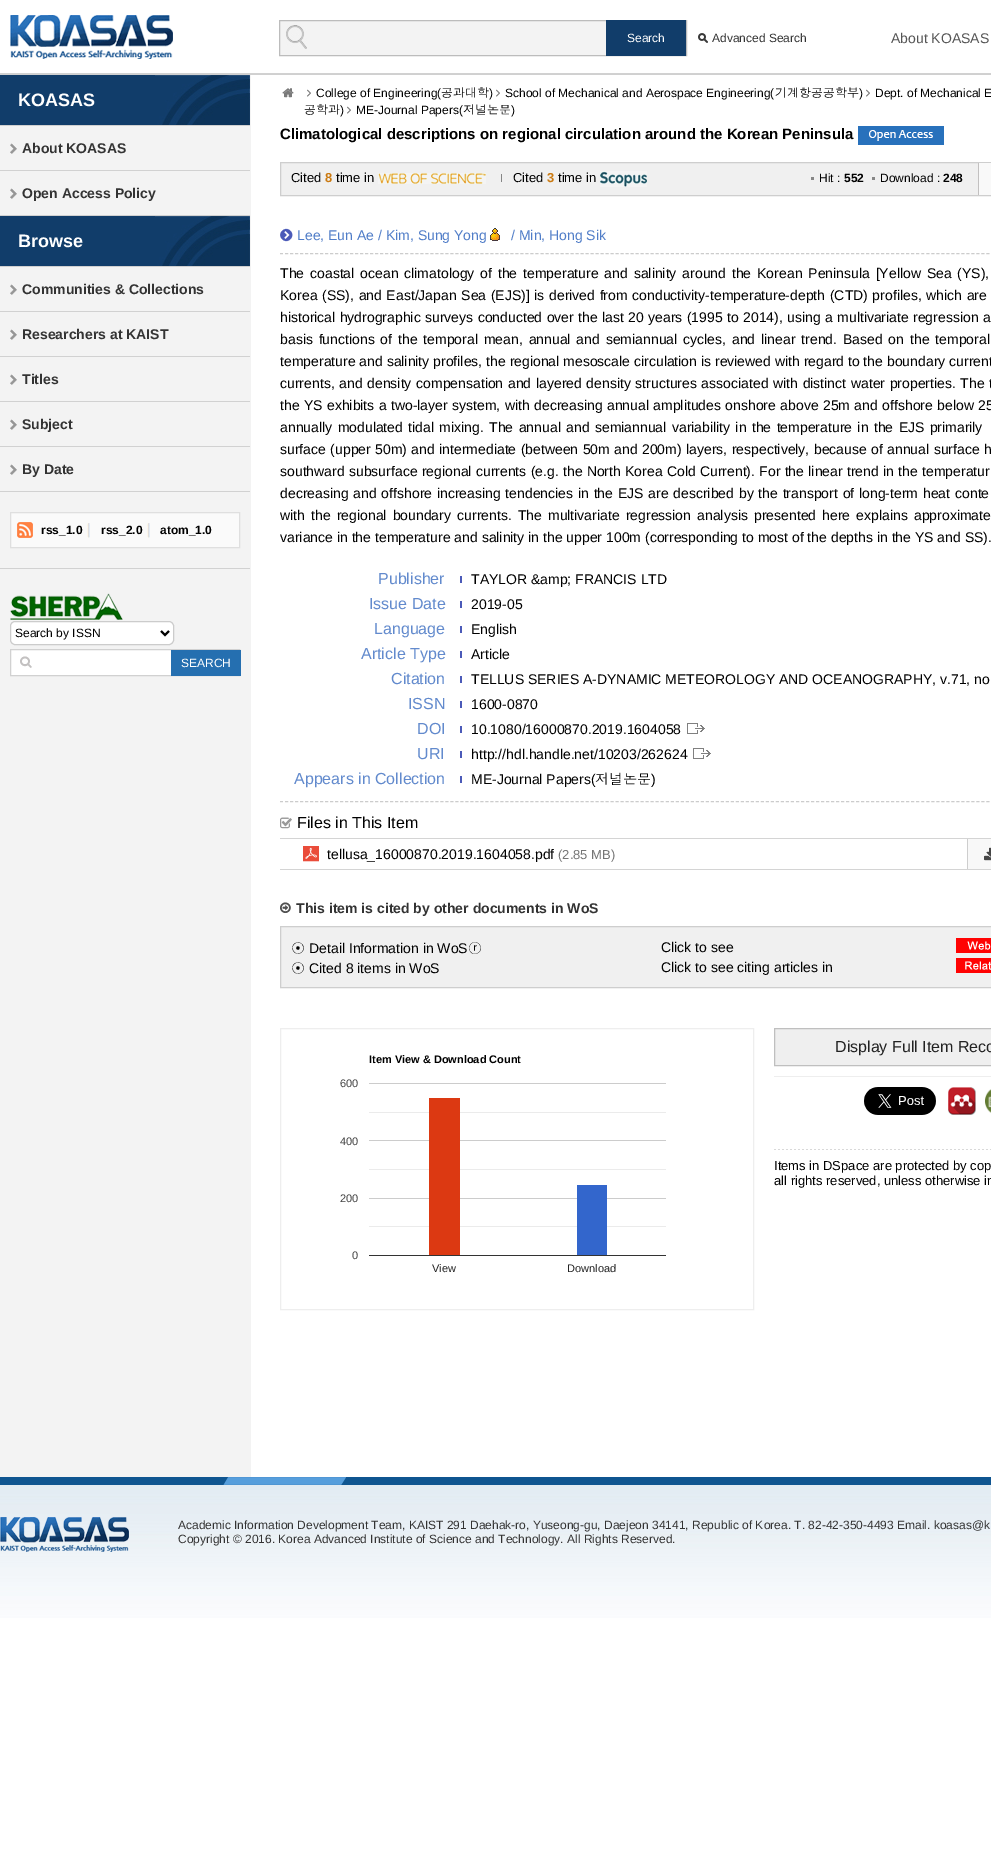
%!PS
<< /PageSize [991 1875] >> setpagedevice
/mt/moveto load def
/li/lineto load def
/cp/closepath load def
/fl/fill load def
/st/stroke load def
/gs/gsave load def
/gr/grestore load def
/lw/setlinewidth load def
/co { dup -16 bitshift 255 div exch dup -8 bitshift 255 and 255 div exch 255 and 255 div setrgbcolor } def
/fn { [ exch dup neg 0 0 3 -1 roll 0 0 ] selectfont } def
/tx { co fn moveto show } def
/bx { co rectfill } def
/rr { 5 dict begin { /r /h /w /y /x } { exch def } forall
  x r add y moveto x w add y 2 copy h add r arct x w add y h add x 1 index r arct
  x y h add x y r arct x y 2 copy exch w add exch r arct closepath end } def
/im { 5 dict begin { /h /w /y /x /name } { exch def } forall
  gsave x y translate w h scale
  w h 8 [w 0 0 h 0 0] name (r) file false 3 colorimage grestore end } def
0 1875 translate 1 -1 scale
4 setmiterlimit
0 0 991 1875 16#FFFFFF bx
(media/1.raw) 10 15 163 44 im
280 21 326 34 16#F3F3F3 bx
(media/2.raw) 286 25 21 24 im
16#BCBCBC co
279.5 20.5 407 35 rectstroke
606 20 80 36 16#113D6A bx
(media/3.raw) 698 33 10 10 im
0 73 991 1 16#D1D1D1 bx
0 75 251 1402 16#F3F3F3 bx
0 74 991 1 16#D0D0D0 bx
0 75 155 50 16#113D6A bx
(media/4.raw) 155 75 95 50 im
0 125 250 1 16#D0D0D0 bx
0 170 250 1 16#D1D1D1 bx
(media/5.raw) 10 143 7 11 im
0 215 250 1 16#D1D1D1 bx
(media/5.raw) 10 188 7 11 im
0 216 155 50 16#113D6A bx
(media/4.raw) 155 216 95 50 im
0 266 250 1 16#D0D0D0 bx
0 311 250 1 16#D1D1D1 bx
(media/5.raw) 10 284 7 11 im
0 356 250 1 16#D1D1D1 bx
(media/5.raw) 10 329 7 11 im
0 401 250 1 16#D1D1D1 bx
(media/5.raw) 10 374 7 11 im
0 446 250 1 16#D1D1D1 bx
(media/5.raw) 10 419 7 11 im
0 491 250 1 16#D1D1D1 bx
(media/5.raw) 10 464 7 11 im
11 513 228 34 16#FAFAFA bx
(media/6.raw) 17 522 16 16 im
16#DFDFDF co
10.5 512.5 229 35 rectstroke
(media/7.raw) 87 523 3 15 im
(media/7.raw) 147 523 3 15 im
0 568 250 1 16#D1D1D1 bx
(media/8.raw) 10 593 113 27 im
16#FFFFFF co
10.5 621.5 163 23 4.5 rr gs fl gr
16#CCCCCC co
st
16#000000 co
2 lw
161 631 mt 165 635 li 169 631 li st
11 650 160 25 16#FFFFFF bx
(media/9.raw) 20 656 12 12 im
16#D1D1D1 co
1 lw
10.5 649.5 229 26 rectstroke
171 650 70 26 16#256FB0 bx
(media/10.raw) 282 88 12 10 im
(media/11.raw) 307 89 4 8 im
(media/11.raw) 496 89 4 8 im
(media/11.raw) 866 89 4 8 im
(media/11.raw) 347 106 4 8 im
(media/12.raw) 858 126 86 19 im
281 163 697 32 16#F0F0F0 bx
16#CECECE co
280.5 162.5 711 33 rectstroke
(media/13.raw) 378 173 108 11 im
501 174 1 8 16#868686 bx
(media/14.raw) 600 171 47 16 im
811 177 3 3 16#868686 bx
872 177 3 3 16#868686 bx
979 163 12 32 16#F9F9F9 bx
978 163 1 32 16#C2C0C0 bx
16#CCCCCC co
[3 2.01] 0 setdash
280 801.5 mt 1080 801.5 li st
(media/15.raw) 280 228 13 14 im
280 253.5 mt 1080 253.5 li st
(media/16.raw) 490 228 10 13 im
460 576 2 7 16#4B5AB8 bx
460 601 2 7 16#4B5AB8 bx
460 626 2 7 16#4B5AB8 bx
460 651 2 7 16#4B5AB8 bx
460 676 2 7 16#4B5AB8 bx
460 701 2 7 16#4B5AB8 bx
460 726 2 7 16#4B5AB8 bx
(media/17.raw) 687 723 18 11 im
460 751 2 7 16#4B5AB8 bx
(media/17.raw) 693 748 18 11 im
460 776 2 7 16#4B5AB8 bx
(media/18.raw) 280 817 12 12 im
280 838 711 1 16#D4D4D4 bx
280 869 711 1 16#D4D4D4 bx
(media/19.raw) 303 846 16 16 im
968 839 23 30 16#F8F8F8 bx
(media/20.raw) 984 847 7 14 im
967 839 1 30 16#CECECE bx
(media/21.raw) 280 902 11 11 im
16#F0F0F0 co
280.5 926.5 mt 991.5 926.5 li 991.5 987.5 li 280.5 987.5 li cp gs fl gr
16#CECECE co
[] 0 setdash
st
(media/22.raw) 956 938 35 15 im
(media/23.raw) 956 958 35 15 im
16#EFEFEF co
774.5 1028.5 mt 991.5 1028.5 li 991.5 1065.5 li 774.5 1065.5 li cp gs fl gr
16#BFBFBF co
st
16#EEEEEE co
280.5 1028.5 473 281 rectstroke
369 1083 297 1 16#CCCCCC bx
369 1140 297 1 16#CCCCCC bx
369 1169 297 1 16#EBEBEB bx
369 1112 297 1 16#EBEBEB bx
369 1198 297 1 16#CCCCCC bx
369 1226 297 1 16#EBEBEB bx
429 1098 31 157 16#DC3912 bx
369 1255 297 1 16#333333 bx
577 1185 30 70 16#3366CC bx
774 1076 217 1 16#EEEEEE bx
(media/24.raw) 774 1149 217 1 im
(media/25.raw) 864 1087 72 28 im
(media/26.raw) 948 1087 28 28 im
(media/27.raw) 985 1089 6 24 im
(media/28.raw) 0 1485 991 133 im
0 1477 991 8 16#0F5590 bx
(media/29.raw) 223 1477 123 8 im
(media/30.raw) 0 1517 129 35 im
(Search) 627 42 /LiberationSans-Regular 12 16#FFFFFF tx
(Advanced Search) 712 42 /LiberationSans-Regular 12 16#333333 tx
(About KOASAS) 891 43 /LiberationSans-Regular 14 16#555555 tx
(KOASAS) 18 106 /LiberationSans-Bold 18 16#FFFFFF tx
(About KOASAS) 22 153 /LiberationSans-Bold 14 16#333333 tx
(Open Access Policy) 22 198 /LiberationSans-Bold 14 16#333333 tx
(Browse) 18 247 /LiberationSans-Bold 18 16#FFFFFF tx
(Communities & Collections) 22 294 /LiberationSans-Bold 14 16#333333 tx
(Researchers at KAIST) 22 339 /LiberationSans-Bold 14 16#333333 tx
(Titles) 22 384 /LiberationSans-Bold 14 16#333333 tx
(Subject) 22 429 /LiberationSans-Bold 14 16#333333 tx
(By Date) 22 474 /LiberationSans-Bold 14 16#333333 tx
(rss_1.0) 41 534 /LiberationSans-Bold 12 16#000000 tx
(rss_2.0) 101 534 /LiberationSans-Bold 12 16#000000 tx
(atom_1.0) 160 534 /LiberationSans-Bold 12 16#000000 tx
(Search by ISSN) 15 637 /LiberationSans-Regular 12 16#000000 tx
(SEARCH) 181 667 /LiberationSans-Regular 12 16#FFFFFF tx
(College of Engineering\() 316 97 /LiberationSans-Regular 12 16#000000 tx
(공과대학) 441 97 /Dotum-Regular 12 16#000000 tx
(\)) 489 97 /LiberationSans-Regular 12 16#000000 tx
(School of Mechanical and Aerospace Engineering\() 505 97 /LiberationSans-Regular 12 16#000000 tx
(기계항공공학부) 775 97 /Dotum-Regular 12 16#000000 tx
(\)) 859 97 /LiberationSans-Regular 12 16#000000 tx
(Dept. of Mechanical E) 875 97 /LiberationSans-Regular 12 16#000000 tx
(공학과) 304 114 /Dotum-Regular 12 16#000000 tx
(\)) 340 114 /LiberationSans-Regular 12 16#000000 tx
(ME-Journal Papers\() 356 114 /LiberationSans-Regular 12 16#000000 tx
(저널논문) 463 114 /Dotum-Regular 12 16#000000 tx
(\)) 511 114 /LiberationSans-Regular 12 16#000000 tx
(Climatological descriptions on regional circulation around the Korean Peninsula) 280 139 /LiberationSans-Bold 15 16#000000 tx
(Cited) 291 182 /LiberationSans-Regular 13 16#000000 tx
(8) 325 182 /LiberationSans-Bold 13 16#CB7A11 tx
(time in) 336 182 /LiberationSans-Regular 13 16#000000 tx
(Cited) 513 182 /LiberationSans-Regular 13 16#000000 tx
(3) 547 182 /LiberationSans-Bold 13 16#CB7A11 tx
(time in) 558 182 /LiberationSans-Regular 13 16#000000 tx
(Hit :) 819 182 /LiberationSans-Regular 12 16#000000 tx
(552) 844 182 /LiberationSans-Bold 12 16#000000 tx
(Download :) 880 182 /LiberationSans-Regular 12 16#000000 tx
(248) 943 182 /LiberationSans-Bold 12 16#000000 tx
(Lee, Eun Ae / Kim, Sung Yong) 297 240 /LiberationSans-Regular 14 16#507DC8 tx
(/ Min, Hong Sik) 511 240 /LiberationSans-Regular 14 16#507DC8 tx
16#000000 co
280 278 mt 2 0 32 (The coastal ocean climatology of the temperature and salinity around the Korean Peninsula [Yellow Sea \(YS\),) widthshow
280 300 mt .75 0 32 (Korea \(SS\), and East/Japan Sea \(EJS\)] is derived from conductivity-temperature-depth \(CTD\) profiles, which are) widthshow
280 322 mt .5 0 32 (historical hydrographic surveys conducted over the last 20 years \(1995 to 2014\), using a multivariate regression a) widthshow
280 344 mt 2 0 32 (basis functions of the temporal mean, annual and semiannual cycles, and linear trend. Based on the temporal) widthshow
(temperature and salinity profiles, the regional mesoscale circulation is reviewed with regard to the boundary current) 280 366 /LiberationSans-Regular 14 16#000000 tx
280 388 mt .75 0 32 (currents, and density compensation and layered density structures associated with distinct water properties. The t) widthshow
280 410 mt .5 0 32 (the YS exhibits a two-layer system, with decreasing annual amplitudes onshore above 25m and offshore below 25) widthshow
280 432 mt 1.5 0 32 (annually modulated tidal mixing. The annual and semiannual variability in the temperature in the EJS primarily) widthshow
280 454 mt .5 0 32 (surface \(upper 50m\) and intermediate \(between 50m and 200m\) layers, respectively, because of annual surface h) widthshow
280 476 mt .4 0 32 (southward subsurface regional currents \(e.g. the North Korea Cold Current\). For the linear trend in the temperatur) widthshow
280 498 mt .9 0 32 (decreasing and offshore increasing tendencies in the EJS are described by the transport of long-term heat conte) widthshow
280 520 mt 2.25 0 32 (with the regional boundary currents. The multivariate regression analysis presented here explains approximate) widthshow
(variance in the temperature and salinity in the upper 100m \(corresponding to most of the depths in the YS and SS\).) 280 542 /LiberationSans-Regular 14 16#000000 tx
(Publisher) 378 584 /LiberationSans-Regular 16 16#628ACD tx
(TAYLOR &amp; FRANCIS LTD) 471 584 /LiberationSans-Regular 14 16#000000 tx
(Issue Date) 369 609 /LiberationSans-Regular 16 16#628ACD tx
(2019-05) 471 609 /LiberationSans-Regular 14 16#000000 tx
(Language) 374 634 /LiberationSans-Regular 16 16#628ACD tx
(English) 471 634 /LiberationSans-Regular 14 16#000000 tx
(Article Type) 361 659 /LiberationSans-Regular 16 16#628ACD tx
(Article) 471 659 /LiberationSans-Regular 14 16#000000 tx
(Citation) 391 684 /LiberationSans-Regular 16 16#628ACD tx
(TELLUS SERIES A-DYNAMIC METEOROLOGY AND OCEANOGRAPHY, v.71, no) 471 684 /LiberationSans-Regular 14 16#000000 tx
(ISSN) 408 709 /LiberationSans-Regular 16 16#628ACD tx
(1600-0870) 471 709 /LiberationSans-Regular 14 16#000000 tx
(DOI) 417 734 /LiberationSans-Regular 16 16#628ACD tx
(10.1080/16000870.2019.1604058) 471 734 /LiberationSans-Regular 14 16#000000 tx
(URI) 417 759 /LiberationSans-Regular 16 16#628ACD tx
(http://hdl.handle.net/10203/262624) 471 759 /LiberationSans-Regular 14 16#000000 tx
(Appears in Collection) 294 784 /LiberationSans-Regular 16 16#628ACD tx
(ME-Journal Papers\() 471 784 /LiberationSans-Regular 14 16#000000 tx
(저널논문) 595 784 /Dotum-Regular 14 16#000000 tx
(\)) 651 784 /LiberationSans-Regular 14 16#000000 tx
(Files in This Item) 297 828 /LiberationSans-Regular 16 16#000000 tx
(tellusa_16000870.2019.1604058.pdf) 327 859 /LiberationSans-Regular 14 16#000000 tx
(\(2.85 MB\)) 558 859 /LiberationSans-Regular 13 16#757575 tx
(This item is cited by other documents in WoS) 296 913 /LiberationSans-Bold 14 16#333333 tx
(⊙) 291 953 /Dotum-Regular 14 16#000000 tx
(Detail Information in WoS) 309 953 /LiberationSans-Regular 14 16#000000 tx
(ⓡ) 468 953 /Dotum-Regular 14 16#000000 tx
(Click to see) 661 952 /LiberationSans-Regular 14 16#000000 tx
(⊙) 291 973 /Dotum-Regular 14 16#000000 tx
(Cited 8 items in WoS) 309 973 /LiberationSans-Regular 14 16#000000 tx
(Click to see citing articles in) 661 972 /LiberationSans-Regular 14 16#000000 tx
(Display Full Item Reco) 835 1052 /LiberationSans-Regular 16 16#222222 tx
(Item View & Download Count) 369 1063 /LiberationSans-Bold 11 16#000000 tx
(600) 340 1087 /LiberationSans-Regular 11 16#444444 tx
(400) 340 1145 /LiberationSans-Regular 11 16#444444 tx
(200) 340 1202 /LiberationSans-Regular 11 16#444444 tx
(0) 352 1259 /LiberationSans-Regular 11 16#444444 tx
(View) 432 1272 /LiberationSans-Regular 11 16#222222 tx
(Download) 567 1272 /LiberationSans-Regular 11 16#222222 tx
(Items in DSpace are protected by cop) 774 1170 /LiberationSans-Regular 13 16#000000 tx
(all rights reserved, unless otherwise in) 774 1185 /LiberationSans-Regular 13 16#000000 tx
(Academic Information Development Team, KAIST 291 Daehak-ro, Yuseong-gu, Daejeon 34141, Republic of Korea. T. 82-42-350-4493 Email. koasas@k) 178 1529 /LiberationSans-Regular 12 16#333333 tx
(Copyright © 2016. Korea Advanced Institute of Science and Technology. All Rights Reserved.) 178 1543 /LiberationSans-Regular 12 16#333333 tx
showpage
